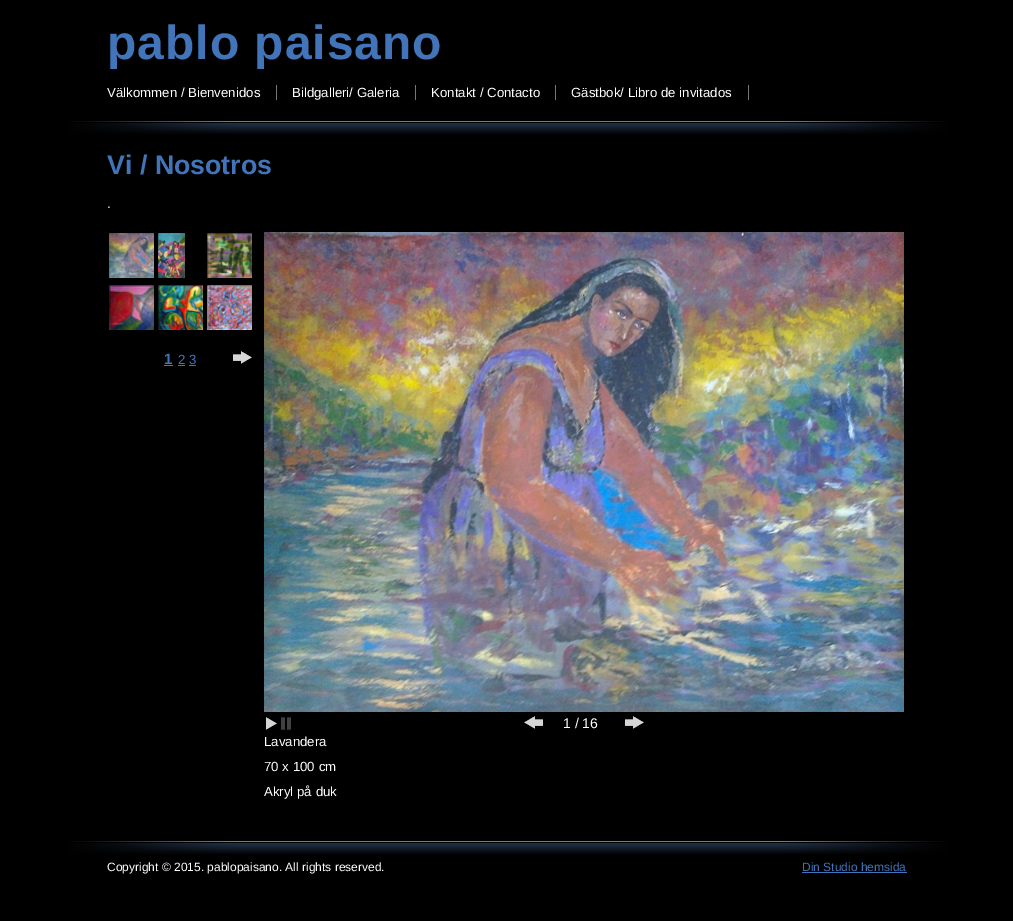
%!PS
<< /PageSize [1013 921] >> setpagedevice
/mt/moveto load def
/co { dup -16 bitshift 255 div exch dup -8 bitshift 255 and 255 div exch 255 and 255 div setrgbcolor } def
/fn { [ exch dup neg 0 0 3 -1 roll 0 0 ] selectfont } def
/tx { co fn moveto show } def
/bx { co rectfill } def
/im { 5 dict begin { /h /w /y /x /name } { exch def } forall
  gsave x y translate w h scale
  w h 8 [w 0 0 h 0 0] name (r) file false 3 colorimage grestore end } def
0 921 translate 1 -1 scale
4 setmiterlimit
0 0 1013 921 16#000000 bx
(media/1.raw) 67 121 882 13 im
276 85 1 15 16#777777 bx
415 85 1 15 16#777777 bx
555 85 1 15 16#777777 bx
748 85 1 15 16#777777 bx
(media/2.raw) 109 233 45 45 im
(media/3.raw) 158 233 27 45 im
(media/4.raw) 207 233 45 45 im
(media/5.raw) 109 285 45 45 im
(media/6.raw) 158 285 45 45 im
(media/7.raw) 207 285 45 45 im
164 365 9 1 16#4174B8 bx
178 365 7 1 16#4174B8 bx
189 365 7 1 16#4174B8 bx
(media/8.raw) 233 351 19 13 im
(media/9.raw) 264 232 640 480 im
(media/10.raw) 266 717 11 13 im
(media/11.raw) 281 717 10 13 im
(media/12.raw) 524 716 19 13 im
(media/8.raw) 625 716 19 13 im
(media/1.raw) 67 841 882 13 im
802 872 105 1 16#4174B8 bx
/LiberationSans-Bold 48 fn
107 59 mt 1 0 (pablo paisano) ashow
(Välkommen / Bienvenidos) 107 97 /LiberationSans-Regular 13.25 16#FFFFFF tx
(Bildgalleri/ Galeria) 292 97 /LiberationSans-Regular 13.25 16#FFFFFF tx
(Kontakt / Contacto) 431 97 /LiberationSans-Regular 13.25 16#FFFFFF tx
(Gästbok/ Libro de invitados) 571 97 /LiberationSans-Regular 13.25 16#FFFFFF tx
(Vi / Nosotros) 107 174 /LiberationSans-Bold 26.75 16#4174B8 tx
(.) 107 208 /LiberationSans-Regular 13.25 16#FFFFFF tx
(1) 164 364 /LiberationSans-Bold 15 16#4174B8 tx
(2) 178 364 /LiberationSans-Regular 13.25 16#4174B8 tx
(3) 189 364 /LiberationSans-Regular 13.25 16#4174B8 tx
(1 / 16) 563 728 /LiberationSans-Regular 14 16#FFFFFF tx
(Lavandera) 264 746 /LiberationSans-Regular 13.25 16#FFFFFF tx
(70 x 100 cm) 264 771 /LiberationSans-Regular 13.25 16#FFFFFF tx
(Akryl på duk) 264 796 /LiberationSans-Regular 13.25 16#FFFFFF tx
(Copyright © 2015. pablopaisano. All rights reserved.) 107 871 /LiberationSans-Regular 12 16#FFFFFF tx
(Din Studio hemsida) 802 871 /LiberationSans-Regular 12 16#4174B8 tx
showpage
